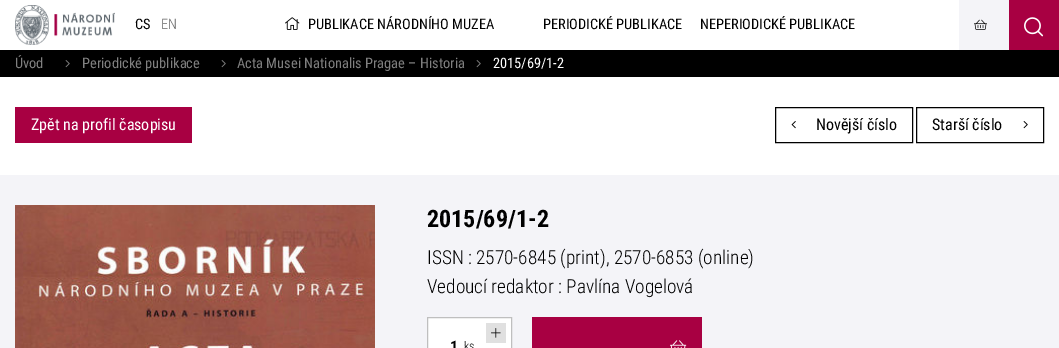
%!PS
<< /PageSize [1059 348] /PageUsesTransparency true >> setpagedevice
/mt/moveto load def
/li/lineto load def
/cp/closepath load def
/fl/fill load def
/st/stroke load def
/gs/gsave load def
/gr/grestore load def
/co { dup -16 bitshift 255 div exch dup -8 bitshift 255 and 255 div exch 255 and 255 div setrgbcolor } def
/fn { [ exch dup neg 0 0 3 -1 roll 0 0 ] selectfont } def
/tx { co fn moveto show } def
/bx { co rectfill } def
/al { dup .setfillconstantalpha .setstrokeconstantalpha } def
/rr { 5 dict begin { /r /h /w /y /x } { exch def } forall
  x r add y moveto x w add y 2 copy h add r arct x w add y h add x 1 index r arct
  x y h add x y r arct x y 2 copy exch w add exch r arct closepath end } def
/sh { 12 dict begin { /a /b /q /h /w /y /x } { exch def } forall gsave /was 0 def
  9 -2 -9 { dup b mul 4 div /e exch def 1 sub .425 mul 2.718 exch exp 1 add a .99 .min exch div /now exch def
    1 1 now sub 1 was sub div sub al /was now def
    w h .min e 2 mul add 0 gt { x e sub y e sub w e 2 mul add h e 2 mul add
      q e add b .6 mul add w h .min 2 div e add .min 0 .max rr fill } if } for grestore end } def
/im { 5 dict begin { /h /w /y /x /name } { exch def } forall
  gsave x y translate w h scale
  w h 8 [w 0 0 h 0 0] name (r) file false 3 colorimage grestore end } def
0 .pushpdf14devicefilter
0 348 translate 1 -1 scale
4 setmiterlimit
0 0 1059 348 16#FFFFFF bx
0 50 1059 27 16#000000 bx
(media/5.raw) 65 60 5 8 im
(media/5.raw) 221 60 5 8 im
(media/5.raw) 476 60 5 8 im
0 5 1059 50 0 10 .12 sh
0 0 959 50 16#FFFFFF bx
(media/1.raw) 15 5 100 40 im
(media/2.raw) 285 17 15 13 im
959 0 50 50 16#F4F4F8 bx
(media/3.raw) 974 19 13 11 im
1009 0 50 50 16#A80042 bx
(media/4.raw) 1024 17 20 20 im
15 107 177 36 16#A80042 bx
16#000000 co
775.5 107.5 137 35 rectstroke
(media/6.raw) 791 121 5 8 im
916.5 107.5 127 35 rectstroke
(media/7.raw) 1023 121 5 8 im
0 175 1059 173 16#F4F4F8 bx
(media/8.raw) 15 205 360 143 im
16#FFFFFF co
427.5 317.5 mt 511.5 317.5 li 511.5 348.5 li 427.5 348.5 li cp gs fl gr
16#BFBFBF co
st
486 323 20 20 16#E0E0E0 bx
(media/9.raw) 491 328 10 10 im
532 317 170 31 16#A80042 bx
(media/10.raw) 670 340 17 8 im
(CS) 135 29 /RobotoCondensed-Regular 14.4 16#000000 tx
(EN) 161 29 /RobotoCondensed-Light 14.4 16#666666 tx
(PUBLIKACE NÁRODNÍHO MUZEA) 308 29 /RobotoCondensed-Regular 14.4 16#000000 tx
(PERIODICKÉ PUBLIKACE) 543 29 /RobotoCondensed-Regular 14.4 16#000000 tx
(NEPERIODICKÉ PUBLIKACE) 700 29 /RobotoCondensed-Regular 14.4 16#000000 tx
(Úvod) 15 68 /RobotoCondensed-Regular 14.4 16#808080 tx
(Periodické publikace) 82 68 /RobotoCondensed-Regular 14.4 16#808080 tx
(Acta Musei Nationalis Pragae – Historia) 237 68 /RobotoCondensed-Regular 14.4 16#808080 tx
(2015/69/1-2) 493 68 /RobotoCondensed-Regular 14.4 16#FFFFFF tx
(Zpět na profil časopisu) 31 130 /RobotoCondensed-Regular 16 16#FFFFFF tx
(Novější číslo) 816 130 /RobotoCondensed-Regular 16 16#000000 tx
(Starší číslo) 932 130 /RobotoCondensed-Regular 16 16#000000 tx
(2015/69/1-2) 427 227 /RobotoCondensed-Bold 24 16#000000 tx
(ISSN : 2570-6845 \(print\), 2570-6853 \(online\)) 427 264 /RobotoCondensed-Light 19.25 16#000000 tx
(Vedoucí redaktor : Pavlína Vogelová) 427 293 /RobotoCondensed-Light 19.25 16#000000 tx
(1) 450 352 /RobotoCondensed-Bold 16 16#000000 tx
(ks) 464 350 /RobotoCondensed-Light 12 16#000000 tx
.poppdf14devicefilter showpage
